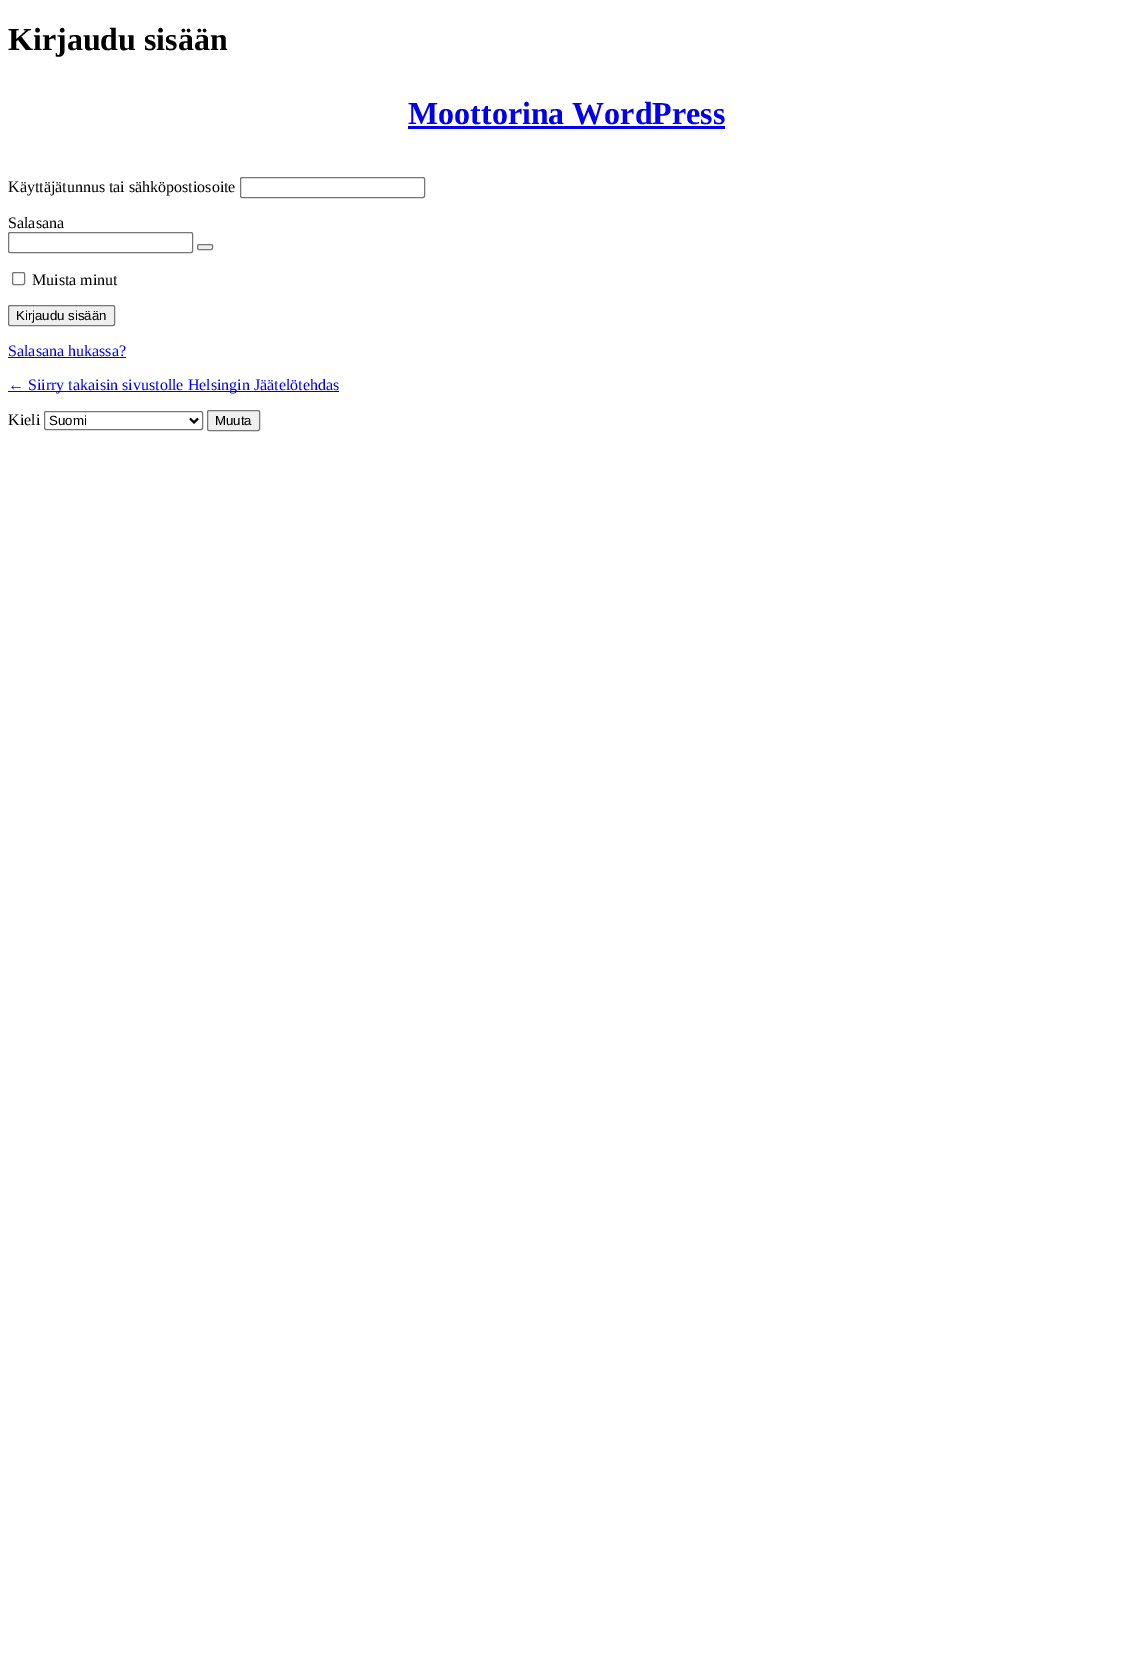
%!PS
<< /PageSize [1133 1679] >> setpagedevice
/mt/moveto load def
/li/lineto load def
/fl/fill load def
/st/stroke load def
/gs/gsave load def
/gr/grestore load def
/lw/setlinewidth load def
/co { dup -16 bitshift 255 div exch dup -8 bitshift 255 and 255 div exch 255 and 255 div setrgbcolor } def
/fn { [ exch dup neg 0 0 3 -1 roll 0 0 ] selectfont } def
/tx { co fn moveto show } def
/bx { co rectfill } def
/rr { 5 dict begin { /r /h /w /y /x } { exch def } forall
  x r add y moveto x w add y 2 copy h add r arct x w add y h add x 1 index r arct
  x y h add x y r arct x y 2 copy exch w add exch r arct closepath end } def
0 1679 translate 1 -1 scale
4 setmiterlimit
0 0 1133 1679 16#FFFFFF bx
408 126 317 3 16#0000EE bx
16#767676 co
240.5 177.5 184 20 1.5 rr st
8.5 232.5 184 20 1.5 rr st
16#EFEFEF co
197.5 244.5 15 5 1.5 rr gs fl gr
16#767676 co
st
12.5 272.5 12 12 1.5 rr st
16#EFEFEF co
8.5 305.5 106 20 1.5 rr gs fl gr
16#767676 co
st
8 357 118 1 16#0000EE bx
8 391 331 1 16#0000EE bx
16#767676 co
44.5 411.5 158 18 1.5 rr st
16#000000 co
2 lw
190 418.5 mt 194 422.5 li 198 418.5 li st
16#EFEFEF co
207.5 410.5 52 20 1.5 rr gs fl gr
16#767676 co
1 lw
st
(Kirjaudu sisään) 8 50 /LiberationSerif-Bold 32 16#000000 tx
(Moottorina WordPress) 408 124 /LiberationSerif-Bold 32 16#0000EE tx
(Käyttäjätunnus tai sähköpostiosoite) 8 192 /LiberationSerif-Regular 16 16#000000 tx
(Salasana) 8 228 /LiberationSerif-Regular 16 16#000000 tx
(Muista minut) 32 285 /LiberationSerif-Regular 16 16#000000 tx
(Kirjaudu sisään) 16 320 /LiberationSans-Regular 13.25 16#000000 tx
(Salasana hukassa?) 8 356 /LiberationSerif-Regular 16 16#0000EE tx
(← Siirry takaisin sivustolle Helsingin Jäätelötehdas) 8 390 /LiberationSerif-Regular 16 16#0000EE tx
(Kieli) 8 425 /LiberationSerif-Regular 16 16#000000 tx
(Suomi) 49 425 /LiberationSans-Regular 13.25 16#000000 tx
(Muuta) 215 425 /LiberationSans-Regular 13.25 16#000000 tx
showpage
